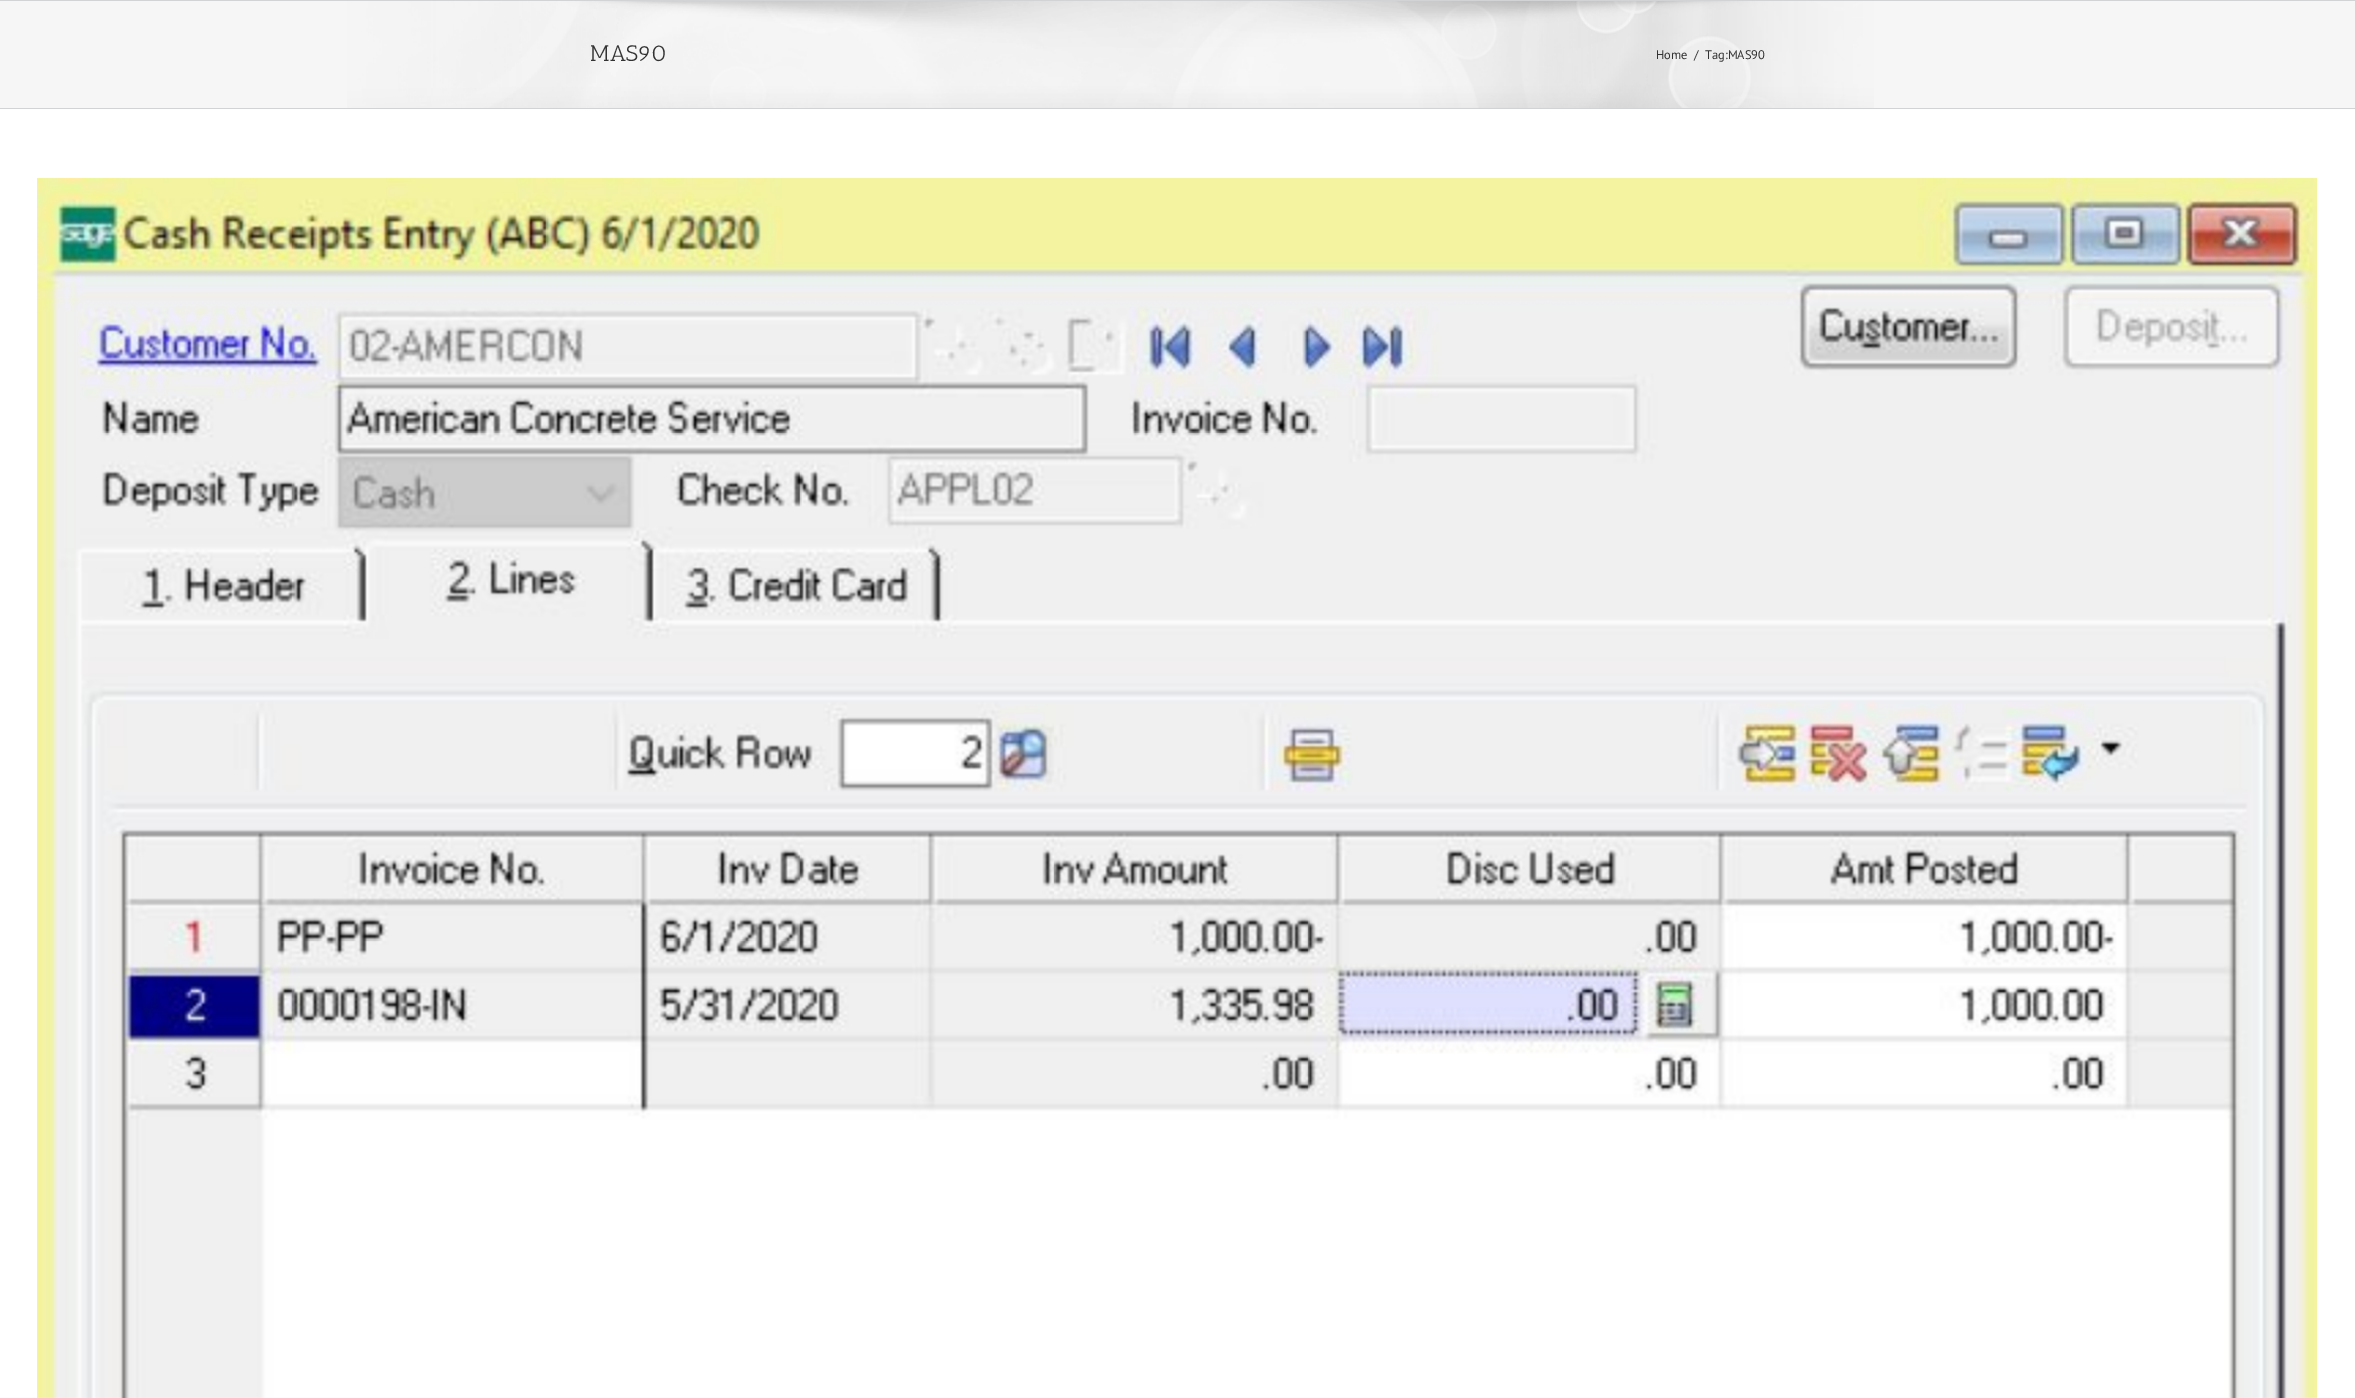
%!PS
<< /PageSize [2355 1398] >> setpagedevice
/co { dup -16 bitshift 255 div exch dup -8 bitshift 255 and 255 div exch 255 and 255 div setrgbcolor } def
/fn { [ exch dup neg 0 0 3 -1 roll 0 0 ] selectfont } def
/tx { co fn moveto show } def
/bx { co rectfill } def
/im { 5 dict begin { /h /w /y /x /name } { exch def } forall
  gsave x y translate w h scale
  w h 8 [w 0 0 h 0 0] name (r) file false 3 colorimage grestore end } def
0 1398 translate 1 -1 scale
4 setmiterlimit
0 0 2355 1398 16#FFFFFF bx
0 1 2355 107 16#F6F6F6 bx
(media/1.raw) 347 1 1527 107 im
0 0 2355 1 16#D2D3D4 bx
0 108 2355 1 16#D2D3D4 bx
(media/2.raw) 37 178 2280 1220 im
(MAS90) 590 61 /AnticSlab-Regular 22.5 16#333333 tx
(Home) 1656 59 /PTSans-Regular 12.5 16#333333 tx
(/) 1694 59 /PTSans-Regular 12.5 16#333333 tx
(Tag:MAS90) 1705 59 /PTSans-Regular 12.5 16#333333 tx
showpage
